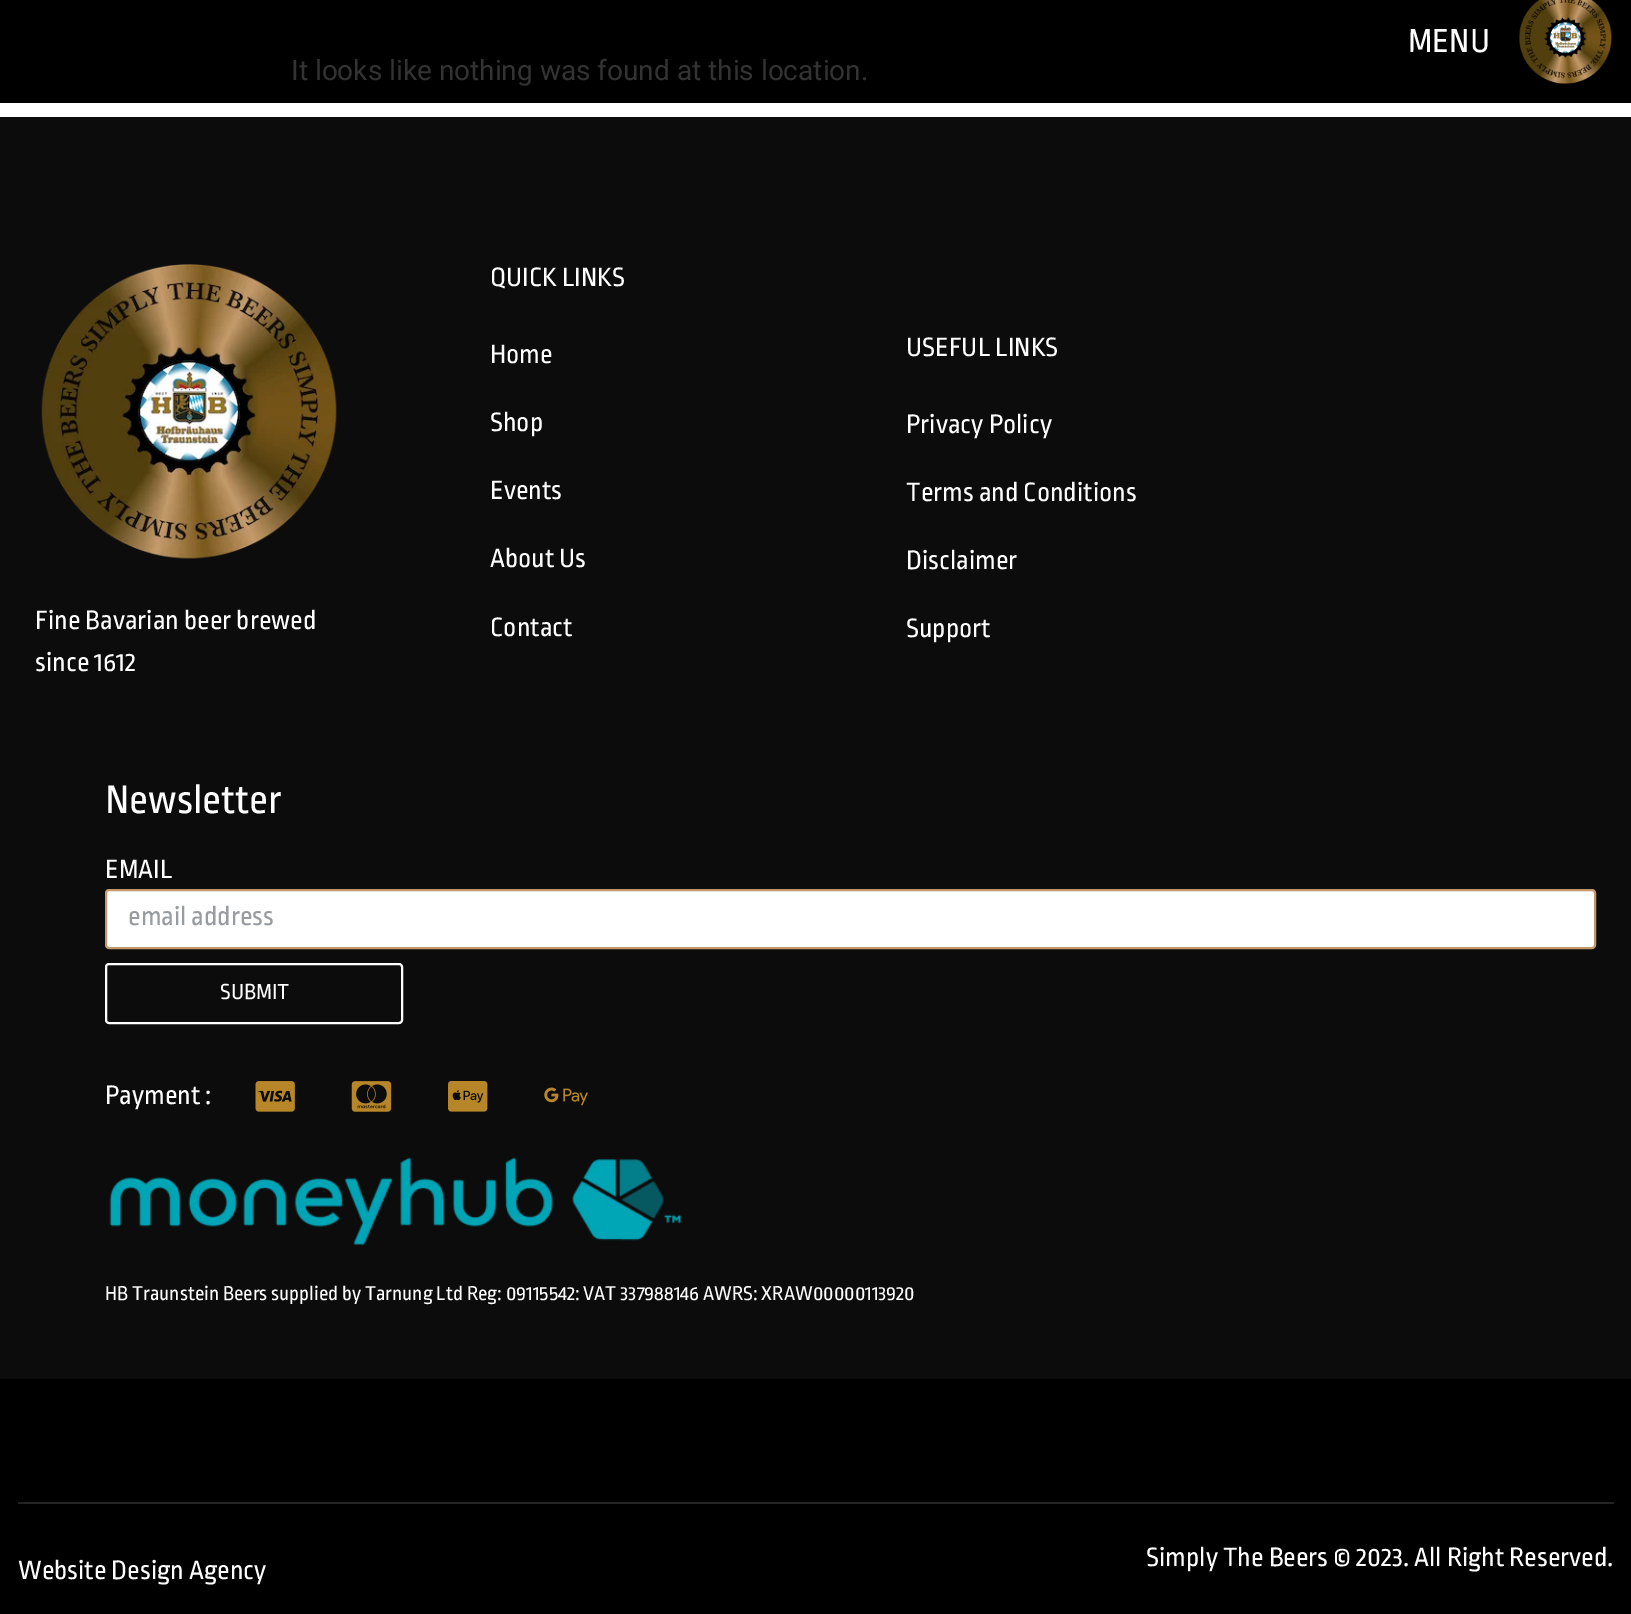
%!PS
<< /PageSize [1631 1614] >> setpagedevice
/fl/fill load def
/st/stroke load def
/gs/gsave load def
/gr/grestore load def
/lw/setlinewidth load def
/co { dup -16 bitshift 255 div exch dup -8 bitshift 255 and 255 div exch 255 and 255 div setrgbcolor } def
/fn { [ exch dup neg 0 0 3 -1 roll 0 0 ] selectfont } def
/tx { co fn moveto show } def
/bx { co rectfill } def
/rr { 5 dict begin { /r /h /w /y /x } { exch def } forall
  x r add y moveto x w add y 2 copy h add r arct x w add y h add x 1 index r arct
  x y h add x y r arct x y 2 copy exch w add exch r arct closepath end } def
/im { 5 dict begin { /h /w /y /x /name } { exch def } forall
  gsave x y translate w h scale
  w h 8 [w 0 0 h 0 0] name (r) file false 3 colorimage grestore end } def
0 1614 translate 1 -1 scale
4 setmiterlimit
0 0 1631 1614 16#FFFFFF bx
0 0 1631 103 16#000000 bx
(media/1.raw) 1519 0 93 84 im
0 117 1631 1262 16#0C0C0C bx
(media/2.raw) 41 264 296 295 im
16#FFFFFF co
106 890 1489 58 3 rr gs fl gr
16#C29868 co
2 lw
st
16#FFFFFF co
106 964 296 59 3 rr st
(media/3.raw) 255 1081 40 31 im
(media/4.raw) 351 1081 41 31 im
(media/5.raw) 448 1081 40 31 im
(media/6.raw) 544 1087 44 19 im
(media/7.raw) 109 1157 573 88 im
0 1379 1631 235 16#000000 bx
18 1502 1596 2 16#242424 bx
(MENU) 1408 52 /RopaSans-Regular 35 16#FFFFFF tx
(It looks like nothing was found at this location.) 291 80 /Roboto-Regular 28 16#333333 tx
(Fine Bavarian beer brewed) 35 629 /RopaSans-Regular 28 16#FFFFFF tx
(since 1612) 35 671 /RopaSans-Regular 28 16#FFFFFF tx
(QUICK LINKS) 490 286 /RopaSans-Regular 28 16#FFFFFF tx
(Home) 490 363 /RopaSans-Regular 28 16#FFFFFF tx
(Shop) 490 431 /RopaSans-Regular 28 16#FFFFFF tx
(Events) 490 499 /RopaSans-Regular 28 16#FFFFFF tx
(About Us) 490 567 /RopaSans-Regular 28 16#FFFFFF tx
(Contact) 490 636 /RopaSans-Regular 28 16#FFFFFF tx
(USEFUL LINKS) 906 356 /RopaSans-Regular 28 16#FFFFFF tx
(Privacy Policy) 906 433 /RopaSans-Regular 28 16#FFFFFF tx
(Terms and Conditions) 906 501 /RopaSans-Regular 28 16#FFFFFF tx
(Disclaimer) 906 569 /RopaSans-Regular 28 16#FFFFFF tx
(Support) 906 637 /RopaSans-Regular 28 16#FFFFFF tx
(Newsletter) 105 813 /RopaSans-Regular 42 16#FFFFFF tx
(EMAIL) 105 878 /RopaSans-Regular 28 16#FFFFFF tx
(email address) 128 925 /RopaSans-Regular 28 16#989B9F tx
(SUBMIT) 220 999 /RopaSans-Regular 23 16#FFFFFF tx
(Payment :) 105 1104 /RopaSans-Regular 28 16#FFFFFF tx
(HB Traunstein Beers supplied by Tarnung Ltd Reg: 09115542: VAT 337988146 AWRS: XRAW00000113920) 105 1300 /RopaSans-Regular 21 16#FFFFFF tx
(Website Design Agency) 18 1579 /RopaSans-Regular 28 16#FFFFFF tx
(Simply The Beers © 2023. All Right Reserved.) 1146 1566 /RopaSans-Regular 28 16#FFFFFF tx
showpage
